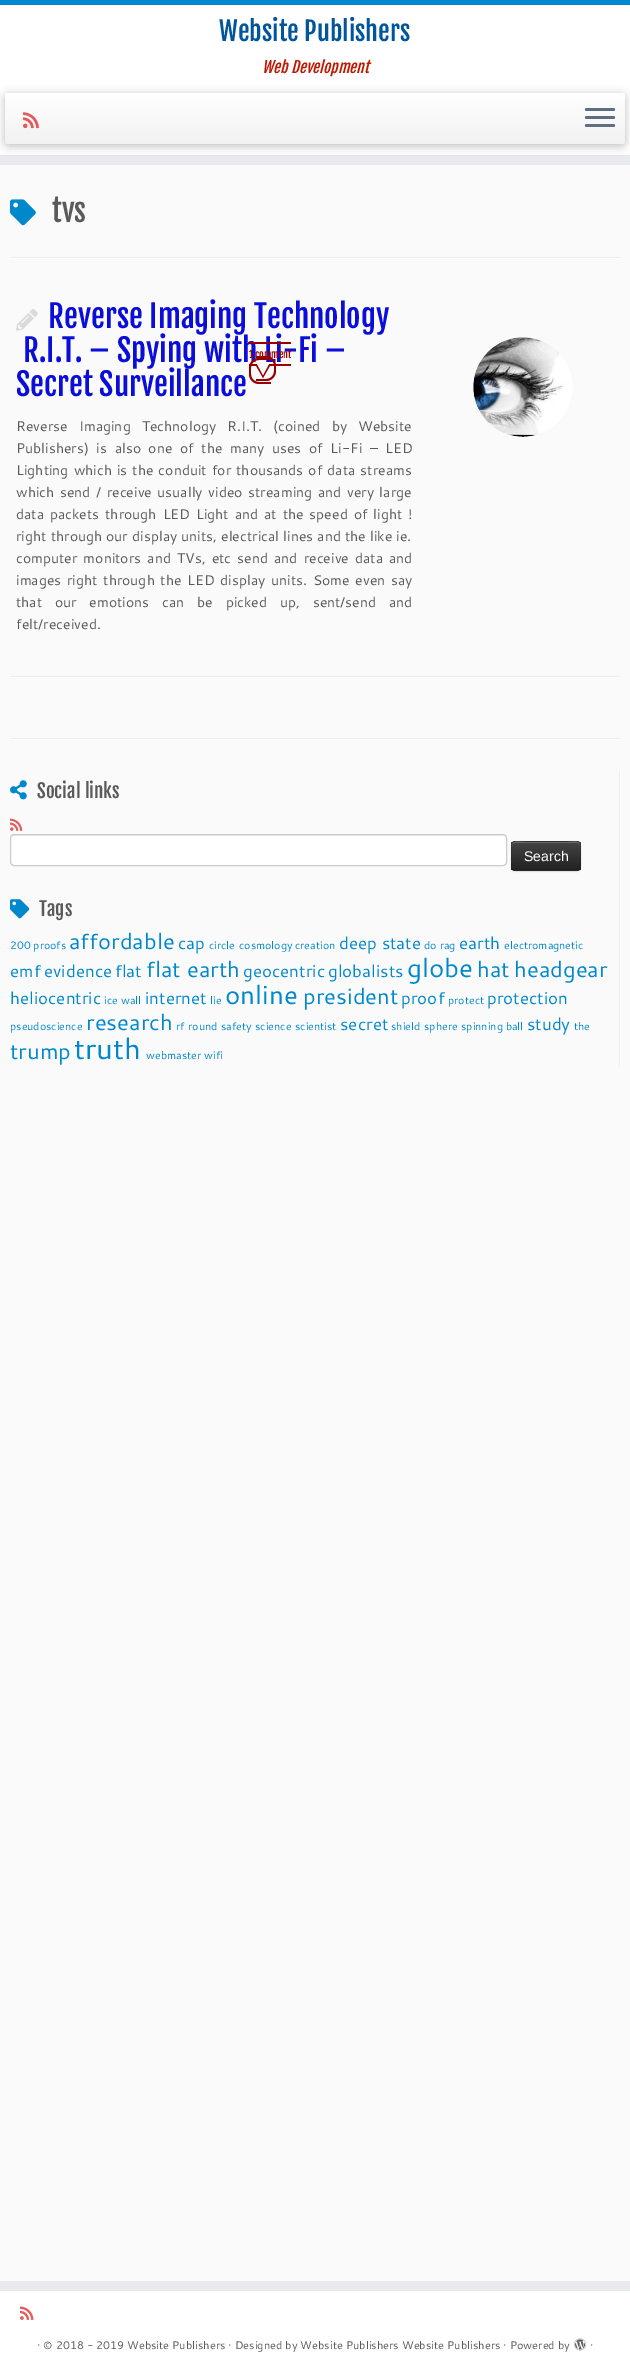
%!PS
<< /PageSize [630 2370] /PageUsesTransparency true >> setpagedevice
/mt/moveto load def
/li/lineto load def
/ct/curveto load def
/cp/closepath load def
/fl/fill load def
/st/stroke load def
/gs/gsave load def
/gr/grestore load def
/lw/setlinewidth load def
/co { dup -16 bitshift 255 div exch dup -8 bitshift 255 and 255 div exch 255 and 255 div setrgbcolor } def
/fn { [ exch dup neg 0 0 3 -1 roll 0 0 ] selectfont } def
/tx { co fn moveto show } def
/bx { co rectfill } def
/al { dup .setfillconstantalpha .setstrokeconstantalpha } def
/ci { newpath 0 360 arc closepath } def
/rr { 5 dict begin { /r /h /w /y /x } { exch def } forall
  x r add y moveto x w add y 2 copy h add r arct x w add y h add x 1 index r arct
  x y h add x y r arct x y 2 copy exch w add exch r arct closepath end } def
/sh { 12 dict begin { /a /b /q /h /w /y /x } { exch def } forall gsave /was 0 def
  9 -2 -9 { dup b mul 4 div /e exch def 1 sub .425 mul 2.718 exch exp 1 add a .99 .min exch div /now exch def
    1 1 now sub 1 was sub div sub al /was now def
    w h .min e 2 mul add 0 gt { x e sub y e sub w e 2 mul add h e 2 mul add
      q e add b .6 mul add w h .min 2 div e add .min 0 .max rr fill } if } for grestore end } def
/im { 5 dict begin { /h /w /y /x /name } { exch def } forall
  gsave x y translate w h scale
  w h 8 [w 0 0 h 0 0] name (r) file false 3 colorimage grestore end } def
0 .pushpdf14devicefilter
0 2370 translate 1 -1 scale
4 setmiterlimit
0 0 630 2370 16#FAFAFA bx
0 5 630 150 16#FFFFFF bx
0 0 630 5 16#0088CC bx
0 155 630 10 16#E9EAEE bx
16#000000 co
5 95 620 51 4 5 .25 sh
gs 5 93 620 51 4 rr clip newpath
<< /ShadingType 2 /ColorSpace /DeviceRGB /Coords [315 93 315 144] /Extend [true true] /Function << /FunctionType 2 /Domain [0 1] /C0 [1 1 1] /C1 [.949 .949 .949] /N 1 >> >> shfill gr
(media/1.raw) 23 112 16 17 im
16#5F6F81 co
585 108 30 3 1.5 rr fl
585 116 30 3 1.5 rr fl
585 124 30 3 1.5 rr fl
(media/2.raw) 10 199 26 27 im
10 257 610 1 16#EEEEEE bx
10 258 610 1 16#FFFFFF bx
(media/3.raw) 16 309 22 22 im
(media/4.raw) 473 337 100 100 im
10 676 610 1 16#EEEEEE bx
10 677 610 1 16#FFFFFF bx
10 738 610 1 16#EEEEEE bx
10 739 610 1 16#FFFFFF bx
619 770 1 296 16#EEEEEE bx
(media/5.raw) 10 780 17 20 im
(media/6.raw) 10 818 13 13 im
620 770 1 296 16#FFFFFF bx
10 834 497 32 4 rr fl
16#ECECEC co
14 836 mt 503 836 li 505 836 506 837 506 839 ct 506 837 505 835 503 835 ct 14 835 li 12 835 11 837 11 839 ct 11 837 12 836 14 836 ct cp fl
16#CCCCCC co
10.5 834.5 496 31 3.5 rr st
16#000000 co
511 842 70 30 4 1 .05 sh
16#363636 co
511 841 70 30 4 rr fl
gs
511 841 70 30 4 rr clip newpath
gs 511 842 mt 581 842 li 581 870 li 511 870 li cp clip newpath
<< /ShadingType 2 /ColorSpace /DeviceRGB /Coords [546 842 546 870] /Extend [true true] /Function << /FunctionType 2 /Domain [0 1] /C0 [.267 .267 .267] /C1 [.133 .133 .133] /N 1 >> >> shfill gr
gr
0.2 al
16#FFFFFF co
515 843 mt 577 843 li 579 843 580 844 580 846 ct 580 839 571 842 567 842 ct 525 842 li 521 842 512 839 512 846 ct 512 844 513 843 515 843 ct cp fl
0.25 al
16#000000 co
579.5 869.5 mt 577.5 870.5 li 514.5 870.5 li 512.5 869.5 li st
0.1 al
512.5 869.5 mt 510.5 867.5 511.5 859 511.5 856 ct 511.5 840 509 841.5 525.5 841.5 ct 566.5 841.5 li 583 841.5 580.5 840 580.5 856 ct 580.5 859 581.5 867.5 579.5 869.5 ct st
1 al
(media/7.raw) 10 899 20 20 im
0 2281 630 10 16#E9EAEE bx
0 2291 630 79 16#FFFFFF bx
(media/8.raw) 20 2306 14 14 im
(media/9.raw) 574 2338 12 13 im
(Website Publishers) 219 41 /FjallaOne-Regular 26 16#01569B tx
(Web Development) 262 73 /FjallaOne-Italic 15.5 16#BC1B05 tx
(tvs) 52 222 /FjallaOne-Regular 30 16#5A5A5A tx
(Reverse Imaging Technology) 48 328 /FjallaOne-Regular 31 16#0A0ED8 tx
(R.I.T. – Spying with Li-Fi –) 23 362 /FjallaOne-Regular 31 16#0A0ED8 tx
16#990000 co
259 358 mt 271 358 li 271 384 li 259 384 li 253.5 384 249 379.5 249 374 ct 249 368 li 249 362.5 253.5 358 259 358 ct cp 259 360 mt 271 360 li 271 382 li 259 382 li 254.5 382 251 378.5 251 374 ct 251 368 li 251 363.5 254.5 360 259 360 ct cp eofill
249 342 42 2 16#990000 bx
249 364 42 2 16#990000 bx
256 356 mt 266 356 li 271.5 356 276 360.5 276 366 ct 276 371 li 276 376.5 271.5 381 266 381 ct 256 381 li cp 256 358 mt 266 358 li 270.5 358 274 361.5 274 366 ct 274 371 li 274 375.5 270.5 379 266 379 ct 256 379 li cp eofill
(1 comment) 249 358 /FjallaOne-Regular 10 16#990000 tx
255 364 mt 271 364 li 263 378 li cp fl
16#FAFAFA co
256 362 mt 270 362 li 263 375 li cp fl
(Secret Surveillance) 16 396 /FjallaOne-Regular 31 16#0A0ED8 tx
/Cantarell-Regular 14 fn
16#5A5A5A co
16 431 mt 7.25 0 32 (Reverse Imaging Technology R.I.T. \(coined by Website) widthshow
16 453 mt 3.75 0 32 (Publishers\) is also one of the many uses of Li-Fi – LED) widthshow
16 475 mt 1.25 0 32 (Lighting which is the conduit for thousands of data streams) widthshow
16 497 mt 1.75 0 32 (which send / receive usually video streaming and very large) widthshow
16 519 mt 2.1 0 32 (data packets through LED Light and at the speed of light !) widthshow
16 541 mt .25 0 32 (right through our display units, electrical lines and the like ie.) widthshow
16 563 mt 2.25 0 32 (computer monitors and TVs, etc send and receive data and) widthshow
16 585 mt 1.9 0 32 (images right through the LED display units. Some even say) widthshow
16 607 mt 9 0 32 (that our emotions can be picked up, sent/send and) widthshow
(felt/received.) 16 629 /Cantarell-Regular 14 16#5A5A5A tx
gs
457 289 131 200 rectclip
16#FAFAFA co
94 lw
523 387 97 ci st
523 387 97 ci st
gr
(Social links) 37 798 /FjallaOne-Regular 19 16#5A5A5A tx
(Search) 524 861 /LiberationSans-Regular 14 16#FFFFFF tx
(Tags) 39 916 /FjallaOne-Regular 19 16#5A5A5A tx
(200 proofs) 10 949 /Cantarell-Regular 10.75 16#0088CC tx
(affordable) 69 949 /Cantarell-Regular 22 16#0088CC tx
(cap) 178 949 /Cantarell-Regular 17 16#0088CC tx
(circle) 209 949 /Cantarell-Regular 10.75 16#0088CC tx
(cosmology) 239 949 /Cantarell-Regular 10.75 16#0088CC tx
(creation) 295 949 /Cantarell-Regular 10.75 16#0088CC tx
(deep state) 339 949 /Cantarell-Regular 17 16#0088CC tx
(do rag) 424 949 /Cantarell-Regular 10.75 16#0088CC tx
(earth) 459 949 /Cantarell-Regular 17 16#0088CC tx
(electromagnetic) 504 949 /Cantarell-Regular 10.75 16#0088CC tx
(emf) 10 977 /Cantarell-Regular 17 16#0088CC tx
(evidence) 44 977 /Cantarell-Regular 17 16#0088CC tx
(flat) 115 977 /Cantarell-Regular 17 16#0088CC tx
(flat earth) 146 977 /Cantarell-Regular 22 16#0088CC tx
(geocentric) 243 977 /Cantarell-Regular 17 16#0088CC tx
(globalists) 328 977 /Cantarell-Regular 17 16#0088CC tx
(globe) 407 977 /Cantarell-Regular 26 16#0088CC tx
(hat) 477 977 /Cantarell-Regular 22 16#0088CC tx
(headgear) 514 977 /Cantarell-Regular 22 16#0088CC tx
(heliocentric) 10 1004 /Cantarell-Regular 17 16#0088CC tx
(ice wall) 104 1004 /Cantarell-Regular 10.75 16#0088CC tx
(internet) 145 1004 /Cantarell-Regular 17 16#0088CC tx
(lie) 210 1004 /Cantarell-Regular 10.75 16#0088CC tx
(online) 225 1004 /Cantarell-Regular 26 16#0088CC tx
(president) 303 1004 /Cantarell-Regular 22 16#0088CC tx
(proof) 401 1004 /Cantarell-Regular 17 16#0088CC tx
(protect) 448 1004 /Cantarell-Regular 10.75 16#0088CC tx
(protection) 487 1004 /Cantarell-Regular 17 16#0088CC tx
(pseudoscience) 10 1030 /Cantarell-Regular 10.75 16#0088CC tx
(research) 86 1030 /Cantarell-Regular 22 16#0088CC tx
(rf) 176 1030 /Cantarell-Regular 10.75 16#0088CC tx
(round) 188 1030 /Cantarell-Regular 10.75 16#0088CC tx
(safety) 221 1030 /Cantarell-Regular 10.75 16#0088CC tx
(science) 255 1030 /Cantarell-Regular 10.75 16#0088CC tx
(scientist) 295 1030 /Cantarell-Regular 10.75 16#0088CC tx
(secret) 340 1030 /Cantarell-Regular 17 16#0088CC tx
(shield) 391 1030 /Cantarell-Regular 10.75 16#0088CC tx
(sphere) 424 1030 /Cantarell-Regular 10.75 16#0088CC tx
(spinning ball) 461 1030 /Cantarell-Regular 10.75 16#0088CC tx
(study) 527 1030 /Cantarell-Regular 17 16#0088CC tx
(the) 574 1030 /Cantarell-Regular 10.75 16#0088CC tx
(trump) 10 1059 /Cantarell-Regular 22 16#0088CC tx
(truth) 74 1059 /Cantarell-Regular 29 16#0088CC tx
(webmaster) 146 1059 /Cantarell-Regular 10.75 16#0088CC tx
(wifi) 204 1059 /Cantarell-Regular 10.75 16#0088CC tx
(· © 2018 - 2019 Website Publishers · Designed by Website Publishers Website Publishers · Powered by) 37 2349 /Cantarell-Regular 11 16#5A5A5A tx
(·) 590 2349 /Cantarell-Regular 11 16#5A5A5A tx
.poppdf14devicefilter showpage
